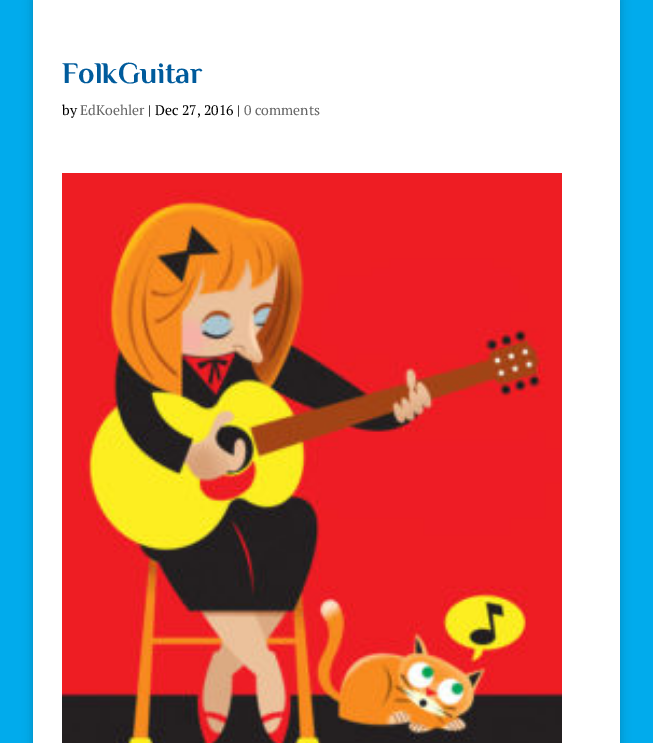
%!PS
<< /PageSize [653 743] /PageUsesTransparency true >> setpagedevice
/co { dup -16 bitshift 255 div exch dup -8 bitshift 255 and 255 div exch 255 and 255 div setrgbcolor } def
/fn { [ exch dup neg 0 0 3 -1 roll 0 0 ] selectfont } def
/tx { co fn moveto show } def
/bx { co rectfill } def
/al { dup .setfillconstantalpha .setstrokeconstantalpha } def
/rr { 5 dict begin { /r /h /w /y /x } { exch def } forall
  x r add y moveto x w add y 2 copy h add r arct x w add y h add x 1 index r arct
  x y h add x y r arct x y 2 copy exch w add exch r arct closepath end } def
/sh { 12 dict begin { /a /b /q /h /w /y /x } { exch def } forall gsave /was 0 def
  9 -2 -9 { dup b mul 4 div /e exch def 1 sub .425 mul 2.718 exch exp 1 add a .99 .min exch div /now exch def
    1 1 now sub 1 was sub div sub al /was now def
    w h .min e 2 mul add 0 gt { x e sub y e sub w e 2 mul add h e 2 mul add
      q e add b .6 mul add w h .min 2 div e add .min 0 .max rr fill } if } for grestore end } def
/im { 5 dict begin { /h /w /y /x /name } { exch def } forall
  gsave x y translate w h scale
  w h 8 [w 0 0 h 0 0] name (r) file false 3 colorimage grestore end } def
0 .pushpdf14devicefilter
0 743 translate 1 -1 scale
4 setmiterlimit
0 0 653 743 16#01ABEC bx
16#000000 co
33 0 587 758 0 5 .2 sh
33 0 587 743 16#FFFFFF bx
(media/1.raw) 62 173 500 570 im
(FolkGuitar) 62 83 /Philosopher-Bold 30 16#005B9C tx
(by) 62 115 /PTSerif-Regular 14 16#000000 tx
(EdKoehler) 80 115 /PTSerif-Regular 14 16#666666 tx
(| Dec 27, 2016 |) 148 115 /PTSerif-Regular 14 16#000000 tx
(0 comments) 244 115 /PTSerif-Regular 14 16#666666 tx
.poppdf14devicefilter showpage
